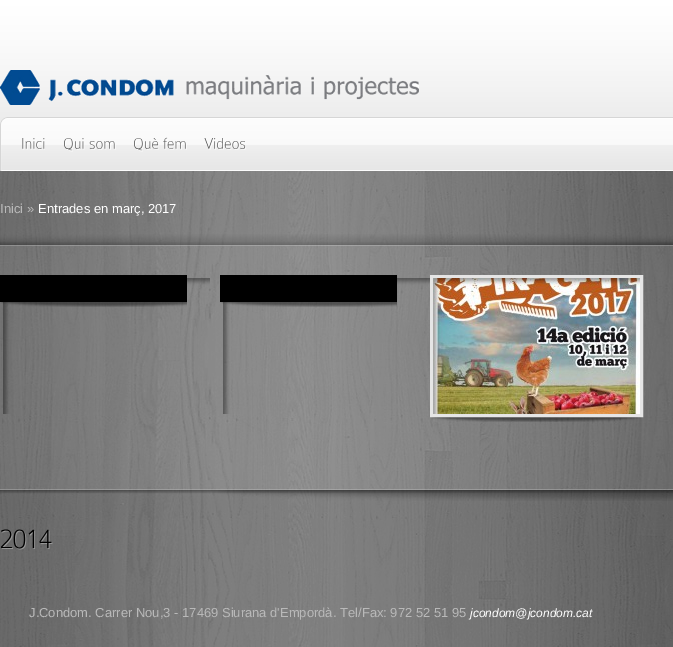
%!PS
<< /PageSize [673 647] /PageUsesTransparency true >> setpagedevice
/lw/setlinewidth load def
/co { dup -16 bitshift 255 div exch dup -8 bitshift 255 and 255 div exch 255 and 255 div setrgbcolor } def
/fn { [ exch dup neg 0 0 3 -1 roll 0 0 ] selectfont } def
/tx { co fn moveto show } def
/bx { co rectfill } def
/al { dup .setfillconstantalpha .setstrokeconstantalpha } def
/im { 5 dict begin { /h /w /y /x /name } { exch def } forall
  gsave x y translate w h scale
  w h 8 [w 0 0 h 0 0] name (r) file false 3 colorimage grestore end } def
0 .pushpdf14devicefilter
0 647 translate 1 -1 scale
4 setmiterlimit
0 0 673 647 16#FFFFFF bx
(media/1.raw) 0 171 673 476 im
(media/2.raw) 0 0 673 125 im
(media/3.raw) 0 70 419 35 im
(media/4.raw) 0 117 673 54 im
(media/5.raw) 22 138 23 12 im
(media/6.raw) 64 138 21 14 im
(media/7.raw) 89 141 27 9 im
(media/8.raw) 134 138 25 14 im
(media/9.raw) 163 137 24 13 im
(media/10.raw) 204 138 42 12 im
(media/11.raw) 0 242 673 4 im
(media/12.raw) 0 234 673 12 im
0.09 al
0 171 673 75 16#000000 bx
1 al
(media/13.raw) 0 171 673 75 im
(media/14.raw) 0 246 673 401 im
(media/15.raw) 0 302 187 5 im
0 275 187 27 16#000000 bx
(media/16.raw) 3 278 207 136 im
(media/17.raw) 220 302 177 5 im
220 275 177 27 16#000000 bx
(media/18.raw) 223 278 207 136 im
(media/19.raw) 430 417 212 5 im
16#E5E5E5 co
3 lw
431.5 276.5 210 139 rectstroke
(media/20.raw) 433 278 207 136 im
(media/21.raw) 433 278 207 136 im
0.09 al
0 489 673 158 16#000000 bx
1 al
(media/22.raw) 0 489 673 4 im
(media/23.raw) 0 489 673 12 im
(media/24.raw) 0 529 53 21 im
(Inici ») 0 213 /LiberationSans-Regular 13 16#B9B9B9 tx
(Entrades en març, 2017) 38 213 /LiberationSans-Regular 13 16#FFFFFF tx
(J.Condom. Carrer Nou,3 - 17469 Siurana d'Empordà. Tel/Fax: 972 52 51 95) 29 617 /LiberationSans-Regular 13 16#B9B9B9 tx
(jcondom@jcondom.cat) 470 617 /LiberationSans-Italic 12 16#FFFFFF tx
.poppdf14devicefilter showpage
